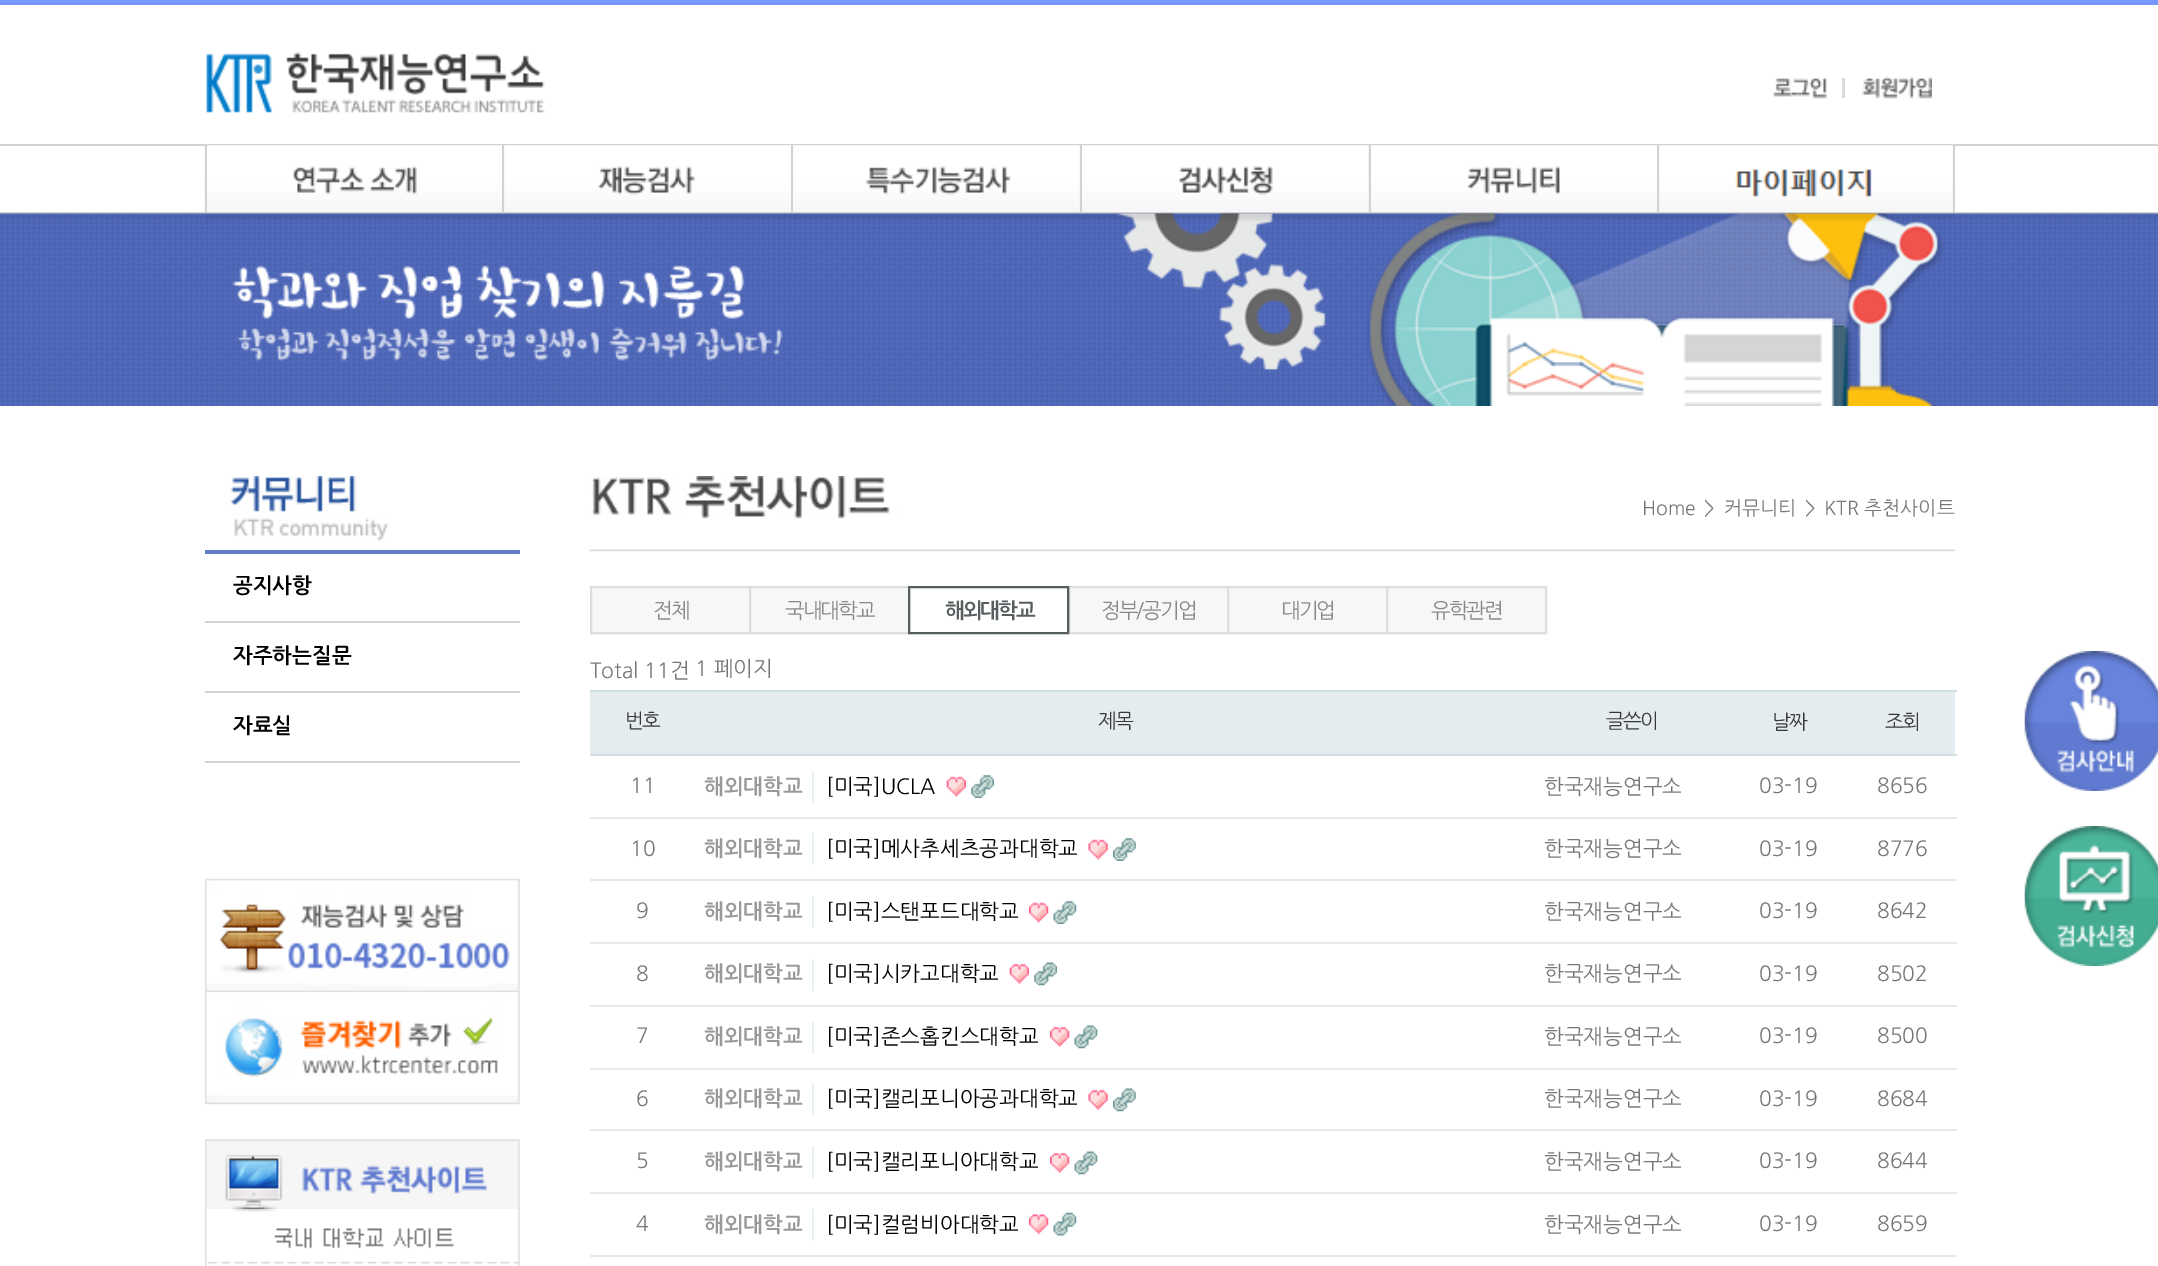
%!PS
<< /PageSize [2158 1266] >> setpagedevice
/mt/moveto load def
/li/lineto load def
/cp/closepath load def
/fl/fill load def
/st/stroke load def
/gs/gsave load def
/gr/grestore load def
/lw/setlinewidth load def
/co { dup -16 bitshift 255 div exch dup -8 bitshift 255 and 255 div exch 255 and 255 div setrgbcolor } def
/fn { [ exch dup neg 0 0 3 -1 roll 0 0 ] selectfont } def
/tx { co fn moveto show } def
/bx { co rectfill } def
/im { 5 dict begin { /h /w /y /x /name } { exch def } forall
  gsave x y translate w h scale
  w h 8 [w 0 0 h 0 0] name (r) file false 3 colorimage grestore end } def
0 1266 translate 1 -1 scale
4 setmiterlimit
0 0 2158 1266 16#FFFFFF bx
0 0 2158 5 16#7697FF bx
(media/1.raw) 206 52 339 61 im
1842 78 3 20 16#DBDBDB bx
(media/2.raw) 1772 78 55 21 im
(media/3.raw) 1862 76 70 23 im
0 144 2158 2 16#D2D2D2 bx
0 212 2158 2 16#D2D2D2 bx
(media/4.raw) 204 145 298 67 im
205 145 2 67 16#D2D2D2 bx
(media/5.raw) 504 145 287 67 im
502 145 2 67 16#D2D2D2 bx
(media/6.raw) 793 145 287 67 im
791 145 2 67 16#D2D2D2 bx
(media/7.raw) 1079 145 290 67 im
1080 145 2 67 16#D2D2D2 bx
(media/8.raw) 1368 145 289 67 im
1369 145 2 67 16#D2D2D2 bx
(media/9.raw) 1659 145 294 67 im
1953 145 2 67 16#D2D2D2 bx
1657 145 2 67 16#D2D2D2 bx
(media/10.raw) 0 213 2158 193 im
(media/12.raw) 205 213 1750 193 im
(media/11.raw) 0 213 2158 8 im
(media/13.raw) 230 476 159 66 im
205 550 315 4 16#617ACB bx
205 621 315 2 16#D2D2D2 bx
205 691 315 2 16#D2D2D2 bx
205 761 315 2 16#D2D2D2 bx
(media/14.raw) 205 878 315 115 im
(media/15.raw) 205 992 315 113 im
(media/16.raw) 205 1139 315 71 im
(media/17.raw) 205 1209 315 53 im
(media/18.raw) 205 1261 315 5 im
(media/19.raw) 589 476 1366 76 im
16#F7F7F7 co
591 587 mt 750 587 li 750 633 li 591 633 li cp gs fl gr
16#DDDDDD co
2 lw
st
16#F7F7F7 co
750 587 mt 909 587 li 909 633 li 750 633 li cp gs fl gr
16#DDDDDD co
st
16#F7F7F7 co
1069 587 mt 1228 587 li 1228 633 li 1069 633 li cp gs fl gr
16#DDDDDD co
st
16#565E60 co
909 587 159 46 rectstroke
16#F7F7F7 co
1228 587 mt 1387 587 li 1387 633 li 1228 633 li cp gs fl gr
16#DDDDDD co
st
16#F7F7F7 co
1387 587 mt 1546 587 li 1546 633 li 1387 633 li cp gs fl gr
16#DDDDDD co
st
590 692 1365 62 16#E5ECEF bx
590 690 1367 2 16#D1DEE2 bx
590 754 1367 2 16#D1DEE2 bx
812 772 2 31 16#E7F1ED bx
(media/20.raw) 946 776 20 21 im
(media/21.raw) 971 775 23 23 im
812 833 2 32 16#E7F1ED bx
(media/22.raw) 1088 839 20 21 im
(media/23.raw) 1113 838 23 23 im
590 817 1367 2 16#E9E9E9 bx
812 896 2 32 16#E7F1ED bx
(media/24.raw) 1029 902 20 21 im
(media/25.raw) 1053 901 24 23 im
590 879 1367 2 16#E9E9E9 bx
812 959 2 32 16#E7F1ED bx
(media/26.raw) 1009 963 20 21 im
(media/27.raw) 1034 962 23 24 im
590 942 1367 2 16#E9E9E9 bx
812 1022 2 32 16#E7F1ED bx
(media/28.raw) 1050 1026 20 21 im
(media/29.raw) 1074 1025 24 24 im
590 1005 1367 2 16#E9E9E9 bx
812 1083 2 32 16#E7F1ED bx
(media/30.raw) 1088 1089 20 21 im
(media/31.raw) 1113 1088 23 24 im
590 1068 1367 2 16#E9E9E9 bx
812 1146 2 32 16#E7F1ED bx
(media/28.raw) 1050 1152 20 21 im
(media/29.raw) 1074 1151 24 24 im
590 1129 1367 2 16#E9E9E9 bx
812 1209 2 32 16#E7F1ED bx
(media/32.raw) 1029 1214 20 21 im
(media/33.raw) 1053 1212 24 24 im
590 1192 1367 2 16#E9E9E9 bx
590 1255 1367 2 16#E9E9E9 bx
(media/34.raw) 2024 651 134 140 im
(media/35.raw) 2024 826 134 140 im
(공지사항) 233 593 /NanumGothic-Bold 21 16#000000 tx
(자주하는질문) 233 663 /NanumGothic-Bold 21 16#000000 tx
(자료실) 233 733 /NanumGothic-Bold 21 16#000000 tx
(Home) 1642 515 /NanumGothic-Regular 19.25 16#777777 tx
(>) 1704 515 /NanumGothic-Regular 19.25 16#777777 tx
(커뮤니티) 1724 515 /NanumGothic-Regular 19.25 16#777777 tx
(>) 1805 515 /NanumGothic-Regular 19.25 16#777777 tx
(KTR 추천사이트) 1824 515 /NanumGothic-Regular 19.25 16#777777 tx
/NanumGothic-Regular 21 fn
16#888888 co
653 618 mt -2 0 (전체) ashow
785 618 mt -2 0 (국내대학교) ashow
/NanumGothic-Bold 21 fn
16#565E60 co
945 618 mt -2 0 (해외대학교) ashow
/NanumGothic-Regular 21 fn
16#888888 co
1101 618 mt -2 0 (정부/공기업) ashow
1281 618 mt -2 0 (대기업) ashow
1431 618 mt -2 0 (유학관련) ashow
(Total 11건) 590 678 /NanumGothic-Regular 21 16#777777 tx
(1 페이지) 695 676 /NanumGothic-Regular 21 16#777777 tx
/NanumGothic-Regular 20 fn
16#383838 co
625 728 mt -2 0 (번호) ashow
1098 728 mt -2 0 (제목) ashow
1606 728 mt -2 0 (글쓴이) ashow
1772 729 mt -2 0 (날짜) ashow
1885 729 mt -2 0 (조회) ashow
(11) 630 793 /NanumGothic-Regular 21 16#777777 tx
(해외대학교) 704 794 /NanumGothic-Bold 21 16#999999 tx
([미국]UCLA) 826 794 /NanumGothic-Regular 21 16#000000 tx
(한국재능연구소) 1544 794 /NanumGothic-Regular 21 16#777777 tx
(03-19) 1759 793 /NanumGothic-Regular 21 16#777777 tx
(8656) 1877 793 /NanumGothic-Regular 21 16#777777 tx
(10) 630 856 /NanumGothic-Regular 21 16#777777 tx
(해외대학교) 704 856 /NanumGothic-Bold 21 16#999999 tx
([미국]메사추세츠공과대학교) 826 856 /NanumGothic-Regular 21 16#000000 tx
(한국재능연구소) 1544 856 /NanumGothic-Regular 21 16#777777 tx
(03-19) 1759 856 /NanumGothic-Regular 21 16#777777 tx
(8776) 1877 856 /NanumGothic-Regular 21 16#777777 tx
(9) 636 918 /NanumGothic-Regular 21 16#777777 tx
(해외대학교) 704 919 /NanumGothic-Bold 21 16#999999 tx
([미국]스탠포드대학교) 826 919 /NanumGothic-Regular 21 16#000000 tx
(한국재능연구소) 1544 919 /NanumGothic-Regular 21 16#777777 tx
(03-19) 1759 918 /NanumGothic-Regular 21 16#777777 tx
(8642) 1877 918 /NanumGothic-Regular 21 16#777777 tx
(8) 636 981 /NanumGothic-Regular 21 16#777777 tx
(해외대학교) 704 981 /NanumGothic-Bold 21 16#999999 tx
([미국]시카고대학교) 826 981 /NanumGothic-Regular 21 16#000000 tx
(한국재능연구소) 1544 981 /NanumGothic-Regular 21 16#777777 tx
(03-19) 1759 981 /NanumGothic-Regular 21 16#777777 tx
(8502) 1877 981 /NanumGothic-Regular 21 16#777777 tx
(7) 636 1043 /NanumGothic-Regular 21 16#777777 tx
(해외대학교) 704 1044 /NanumGothic-Bold 21 16#999999 tx
([미국]존스홉킨스대학교) 826 1044 /NanumGothic-Regular 21 16#000000 tx
(한국재능연구소) 1544 1044 /NanumGothic-Regular 21 16#777777 tx
(03-19) 1759 1043 /NanumGothic-Regular 21 16#777777 tx
(8500) 1877 1043 /NanumGothic-Regular 21 16#777777 tx
(6) 636 1106 /NanumGothic-Regular 21 16#777777 tx
(해외대학교) 704 1106 /NanumGothic-Bold 21 16#999999 tx
([미국]캘리포니아공과대학교) 826 1106 /NanumGothic-Regular 21 16#000000 tx
(한국재능연구소) 1544 1106 /NanumGothic-Regular 21 16#777777 tx
(03-19) 1759 1106 /NanumGothic-Regular 21 16#777777 tx
(8684) 1877 1106 /NanumGothic-Regular 21 16#777777 tx
(5) 636 1168 /NanumGothic-Regular 21 16#777777 tx
(해외대학교) 704 1169 /NanumGothic-Bold 21 16#999999 tx
([미국]캘리포니아대학교) 826 1169 /NanumGothic-Regular 21 16#000000 tx
(한국재능연구소) 1544 1169 /NanumGothic-Regular 21 16#777777 tx
(03-19) 1759 1168 /NanumGothic-Regular 21 16#777777 tx
(8644) 1877 1168 /NanumGothic-Regular 21 16#777777 tx
(4) 636 1231 /NanumGothic-Regular 21 16#777777 tx
(해외대학교) 704 1232 /NanumGothic-Bold 21 16#999999 tx
([미국]컬럼비아대학교) 826 1232 /NanumGothic-Regular 21 16#000000 tx
(한국재능연구소) 1544 1232 /NanumGothic-Regular 21 16#777777 tx
(03-19) 1759 1231 /NanumGothic-Regular 21 16#777777 tx
(8659) 1877 1231 /NanumGothic-Regular 21 16#777777 tx
showpage
